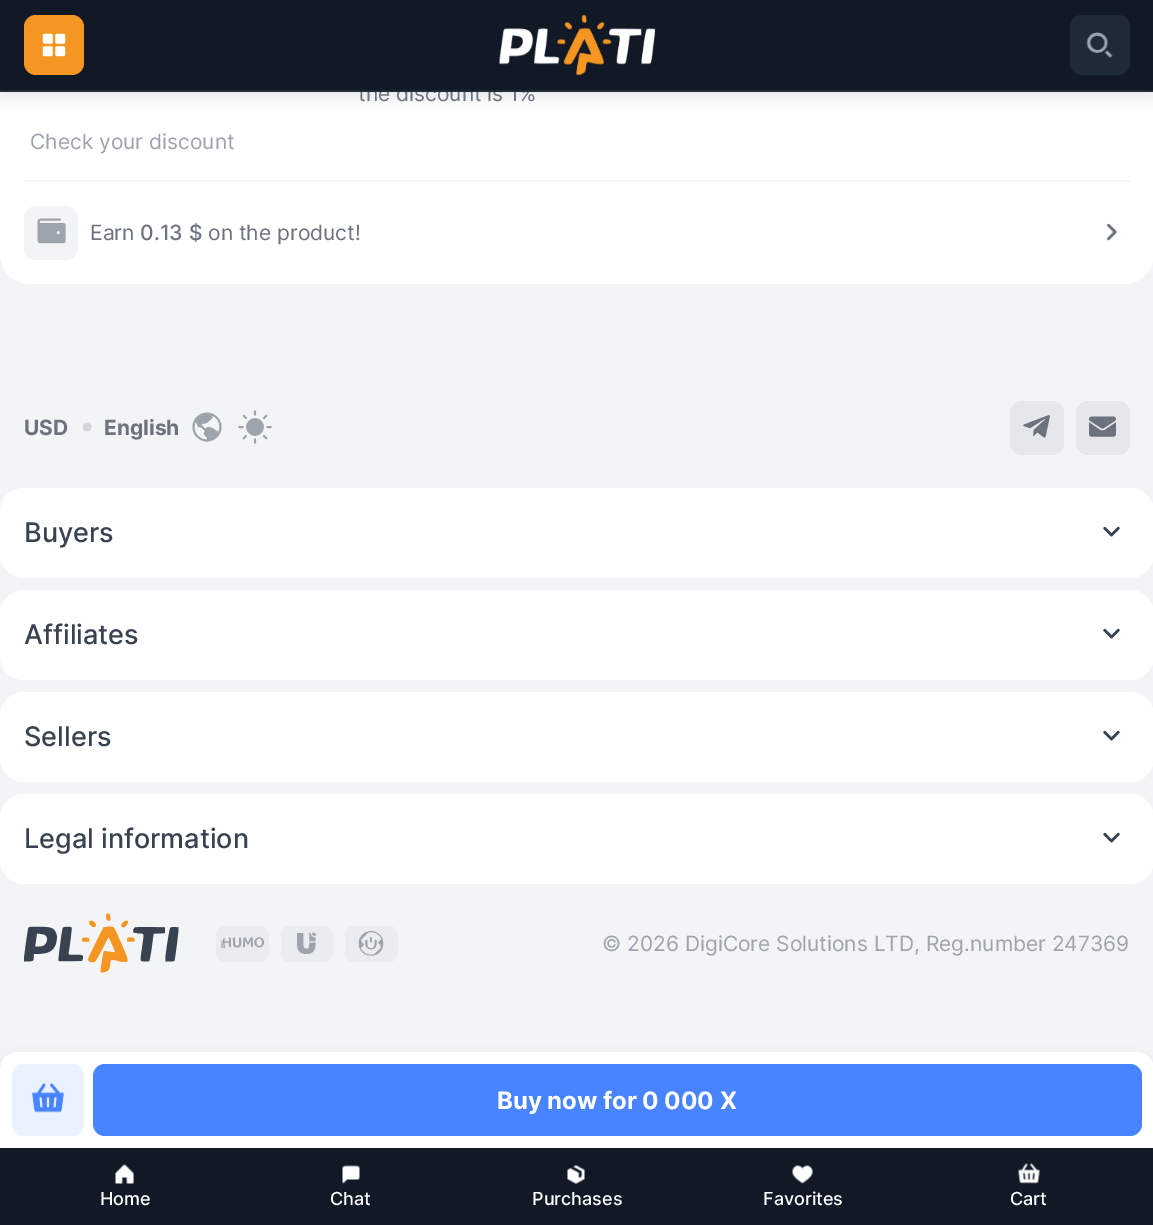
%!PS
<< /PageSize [1153 1225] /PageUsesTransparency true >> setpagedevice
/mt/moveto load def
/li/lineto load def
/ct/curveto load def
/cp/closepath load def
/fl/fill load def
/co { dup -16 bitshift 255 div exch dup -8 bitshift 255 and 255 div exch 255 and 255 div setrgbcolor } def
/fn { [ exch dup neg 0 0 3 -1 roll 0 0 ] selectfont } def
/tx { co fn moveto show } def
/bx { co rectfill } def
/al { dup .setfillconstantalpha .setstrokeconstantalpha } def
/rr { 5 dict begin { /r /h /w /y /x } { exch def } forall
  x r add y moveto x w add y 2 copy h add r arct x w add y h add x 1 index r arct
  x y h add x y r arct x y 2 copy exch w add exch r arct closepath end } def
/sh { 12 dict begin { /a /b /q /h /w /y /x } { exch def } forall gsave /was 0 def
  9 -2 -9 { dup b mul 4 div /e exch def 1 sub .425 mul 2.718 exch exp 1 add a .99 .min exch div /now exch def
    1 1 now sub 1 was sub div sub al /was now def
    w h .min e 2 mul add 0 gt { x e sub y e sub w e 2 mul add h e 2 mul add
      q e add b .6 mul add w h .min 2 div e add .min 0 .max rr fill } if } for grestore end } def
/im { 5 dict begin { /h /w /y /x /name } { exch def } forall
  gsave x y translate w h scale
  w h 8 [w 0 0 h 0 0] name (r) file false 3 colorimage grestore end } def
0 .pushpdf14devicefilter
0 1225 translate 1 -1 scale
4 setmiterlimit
0 0 1153 1225 16#F3F4F6 bx
16#FFFFFF co
0 -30 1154 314 30 rr fl
16#F3F4F6 co
24 180 1106 2 1 rr fl
24 206 54 54 12 rr fl
(media/1.raw) 37 218 29 26 im
(media/2.raw) 1107 223 10 18 im
16#111927 co
0 1058 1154 96 18 6 .1 sh
16#FFFFFF co
18 1052 mt 1136 1052 li 1146 1052 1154 1060 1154 1070 ct 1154 1148 li 0 1148 li 0 1070 li 0 1060 8 1052 18 1052 ct cp fl
16#E9F0FF co
12 1064 72 72 12 rr fl
(media/3.raw) 32 1083 32 30 im
16#4884FF co
93 1064 1049 72 12 rr fl
(media/4.raw) 82 422 10 10 im
(media/5.raw) 192 412 30 30 im
(media/6.raw) 238 410 34 34 im
16#E5E7EB co
1010 401 54 54 12 rr fl
(media/7.raw) 1023 415 27 23 im
1076 401 54 54 12 rr fl
(media/8.raw) 1089 416 27 21 im
16#FFFFFF co
0 488 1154 90 24 rr fl
(media/9.raw) 1103 526 17 11 im
0 590 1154 90 24 rr fl
(media/9.raw) 1103 628 17 11 im
0 692 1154 90 24 rr fl
(media/9.raw) 1103 730 17 11 im
0 794 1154 90 24 rr fl
(media/9.raw) 1103 832 17 11 im
(media/10.raw) 24 913 155 60 im
16#EBECEF co
216 926 53 36 9 rr fl
(media/11.raw) 220 937 45 12 im
281 926 52 36 9 rr fl
(media/12.raw) 297 932 19 22 im
345 926 53 36 9 rr fl
(media/13.raw) 358 931 26 25 im
16#111927 co
0 6 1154 92 0 6 .1 sh
0 1148 1153 77 16#111927 bx
(media/17.raw) 115 1164 19 20 im
(media/18.raw) 342 1165 18 19 im
(media/19.raw) 567 1165 18 19 im
(media/20.raw) 792 1165 21 19 im
(media/21.raw) 1018 1163 22 21 im
(the discount is 1%) 358 101 /Inter-Regular 21 16#6C737F tx
(Check your discount) 30 149 /Inter-Regular 21 16#9DA4AE tx
(Earn) 90 240 /Inter-Regular 21 16#6C737F tx
(0.13 $) 140 240 /Inter-Medium 21 16#6C737F tx
(on the product!) 208 240 /Inter-Regular 21 16#6C737F tx
(Buy now for 0 000 X) 497 1109 /Inter-Bold 24 16#FFFFFF tx
(USD) 24 435 /Inter-Bold 21 16#6C737F tx
(English) 104 435 /Inter-Bold 21 16#6C737F tx
(Buyers) 24 542 /Inter-Medium 27 16#384250 tx
(Affiliates) 24 644 /Inter-Medium 27 16#384250 tx
(Sellers) 24 746 /Inter-Medium 27 16#384250 tx
(Legal information) 24 848 /Inter-Medium 27 16#384250 tx
(© 2026 DigiCore Solutions LTD, Reg.number 247369) 602 951 /Inter-Regular 21 16#9DA4AE tx
0 0 1153 90 16#111927 bx
0 90 1153 2 16#1F2A37 bx
16#F59622 co
24 15 60 60 12 rr fl
(media/14.raw) 42 33 24 24 im
(media/15.raw) 499 15 157 60 im
16#1F2A37 co
1070 15 60 60 12 rr fl
(media/16.raw) 1086 32 27 26 im
(Home) 100 1205 /Inter-Medium 18 16#FFFFFF tx
(Chat) 330 1205 /Inter-Medium 18 16#FFFFFF tx
(Purchases) 532 1205 /Inter-Medium 18 16#FFFFFF tx
(Favorites) 763 1205 /Inter-Medium 18 16#FFFFFF tx
(Cart) 1010 1205 /Inter-Medium 18 16#FFFFFF tx
.poppdf14devicefilter showpage
